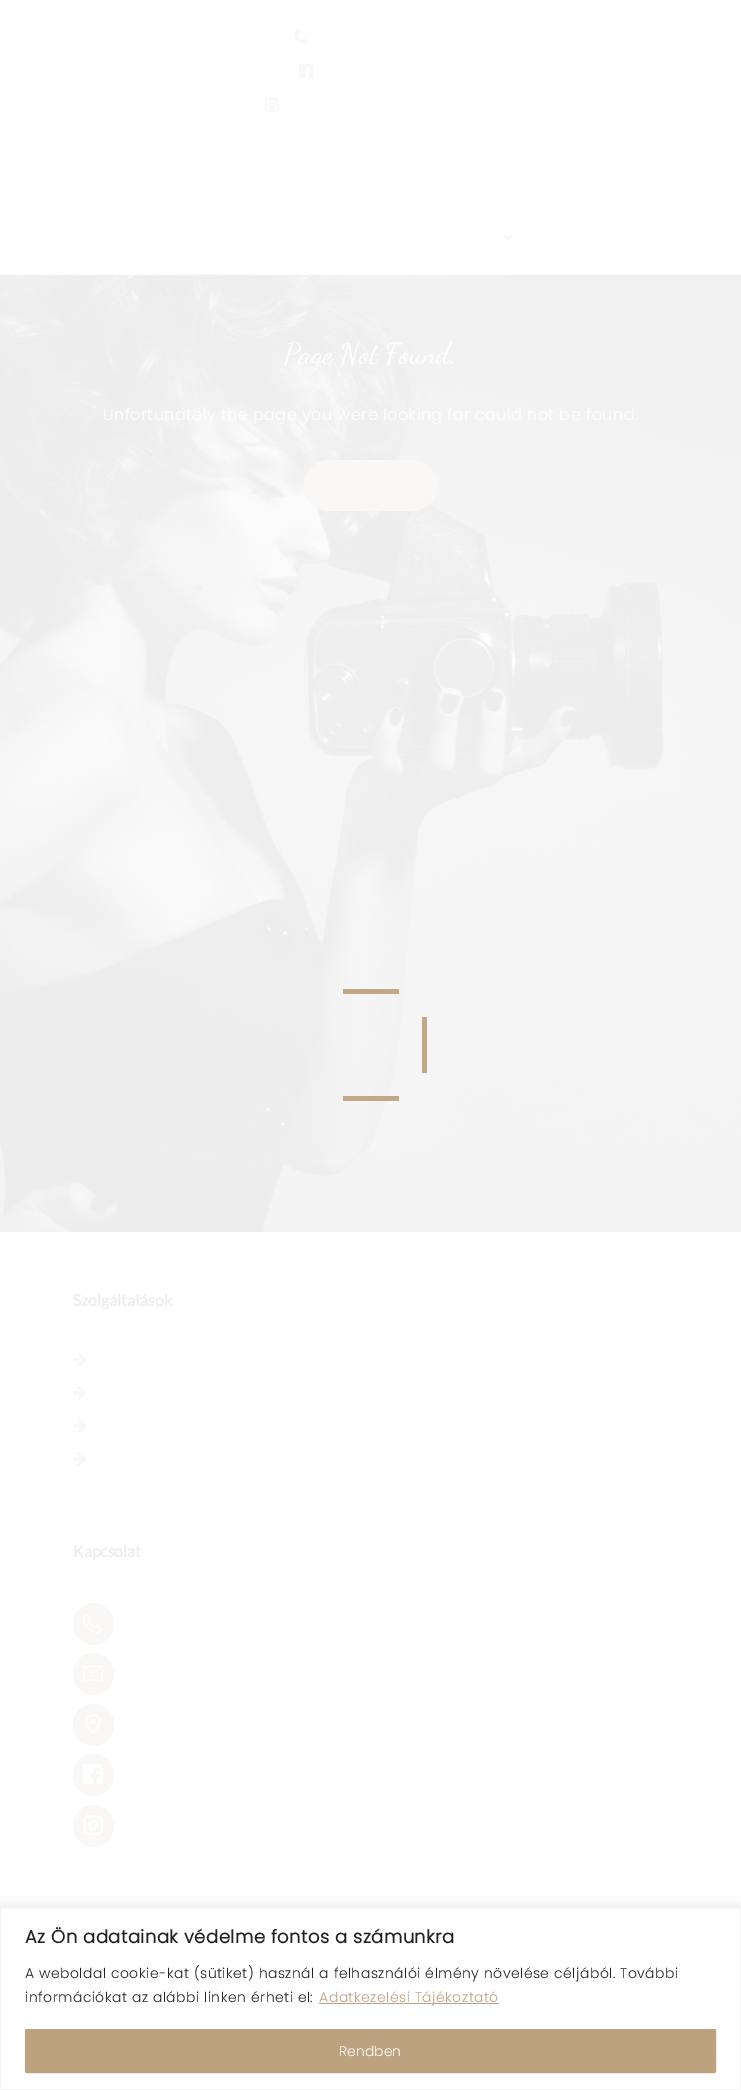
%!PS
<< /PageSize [741 2090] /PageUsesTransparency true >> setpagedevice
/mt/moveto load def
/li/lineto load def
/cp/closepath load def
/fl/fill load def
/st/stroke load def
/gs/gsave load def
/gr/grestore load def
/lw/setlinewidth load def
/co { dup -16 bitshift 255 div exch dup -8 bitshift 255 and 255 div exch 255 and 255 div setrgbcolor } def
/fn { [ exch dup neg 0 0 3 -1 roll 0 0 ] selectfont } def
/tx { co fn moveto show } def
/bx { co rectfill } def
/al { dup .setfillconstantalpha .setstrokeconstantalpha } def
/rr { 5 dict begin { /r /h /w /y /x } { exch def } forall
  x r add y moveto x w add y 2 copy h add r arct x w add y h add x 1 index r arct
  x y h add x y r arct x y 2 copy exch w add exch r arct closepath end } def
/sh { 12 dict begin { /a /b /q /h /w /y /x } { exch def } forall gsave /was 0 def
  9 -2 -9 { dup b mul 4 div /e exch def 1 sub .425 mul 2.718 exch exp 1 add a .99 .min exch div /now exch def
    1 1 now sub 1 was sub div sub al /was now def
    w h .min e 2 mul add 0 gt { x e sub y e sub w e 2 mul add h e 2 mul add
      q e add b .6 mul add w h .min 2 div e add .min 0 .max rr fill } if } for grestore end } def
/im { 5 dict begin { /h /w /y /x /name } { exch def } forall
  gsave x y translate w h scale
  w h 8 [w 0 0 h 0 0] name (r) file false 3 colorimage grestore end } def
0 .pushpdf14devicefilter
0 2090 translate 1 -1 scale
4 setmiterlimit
0 0 741 2090 16#FFFFFF bx
0 274 741 1 16#FCFCFC bx
(media/1.raw) 294 30 14 14 im
(media/2.raw) 299 63 14 15 im
(media/3.raw) 265 97 14 15 im
(media/4.raw) 504 234 8 7 im
(media/5.raw) 0 275 741 957 im
16#FAF8F6 co
304 460 133 51 25.5 rr fl
(media/6.raw) 73 1353 14 14 im
(media/6.raw) 73 1386 14 14 im
(media/6.raw) 73 1419 14 14 im
(media/6.raw) 73 1452 14 14 im
73 1603 41 42 20.5 rr fl
(media/7.raw) 83 1613 20 21 im
73 1653 41 42 20.5 rr fl
(media/8.raw) 83 1665 20 16 im
73 1704 41 42 20.5 rr fl
(media/9.raw) 85 1714 16 20 im
73 1754 41 42 20.5 rr fl
(media/10.raw) 83 1764 20 21 im
73 1805 41 42 20.5 rr fl
(media/11.raw) 83 1815 20 21 im
0.93 al
343 989 56 5 16#BDA27F bx
1 al
422 1017 5 56 16#C1A887 bx
0.93 al
343 1096 56 5 16#BDA27F bx
1 al
16#ACABAB co
0 1906 741 183 0 5 .3 sh
16#FFFFFF co
.5 1907.5 mt 740.5 1907.5 li 740.5 2089.5 li .5 2089.5 li cp gs fl gr
16#F4F4F4 co
st
319 2003 180 1 16#BDA27F bx
26 2030 689 42 1 rr gs fl gr
2 lw
st
(Page Not Found.) 284 363 /DancingScript-Regular 29 16#FFFFFF tx
/Poppins-Light 16 fn
103 420 mt .48 0 (Unfortunately the page you were looking for could not be found.) ashow
/Lato-Bold 16 fn
16#EDEDED co
73 1306 mt -.2 0 (Szolgáltatások) ashow
73 1557 mt -.2 0 (Kapcsolat) ashow
/Poppins-Bold 18 fn
16#212121 co
25 1943 mt .48 0 (Az Ön adatainak védelme fontos a számunkra) ashow
/Poppins-Light 14 fn
25 1978 mt .48 0 (A weboldal cookie-kat \(sütiket\) használ a felhasználói élmény növelése céljából. További) ashow
25 2002 mt .48 0 (információkat az alábbi linken érheti el:) ashow
16#BDA27F co
319 2002 mt .48 0 (Adatkezelési Tájékoztató) ashow
(Rendben) 339 2056 /Poppins-Light 14 16#FFFFFF tx
.poppdf14devicefilter showpage
